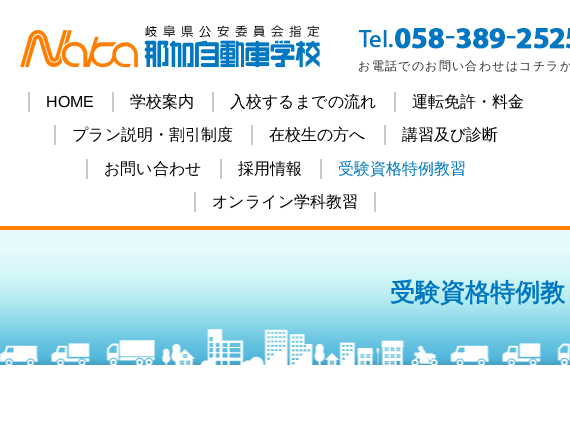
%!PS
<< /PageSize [570 426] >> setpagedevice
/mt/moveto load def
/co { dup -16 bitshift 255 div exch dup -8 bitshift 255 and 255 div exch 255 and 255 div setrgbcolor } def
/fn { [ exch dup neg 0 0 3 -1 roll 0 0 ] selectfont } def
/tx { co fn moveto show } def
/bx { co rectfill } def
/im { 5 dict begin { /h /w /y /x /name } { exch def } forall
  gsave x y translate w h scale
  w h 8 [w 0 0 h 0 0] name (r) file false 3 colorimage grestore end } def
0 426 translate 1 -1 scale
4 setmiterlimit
0 0 570 426 16#FFFFFF bx
(media/1.raw) 16 24 304 48 im
(media/2.raw) 358 28 212 21 im
0 226 570 4 16#FF7F00 bx
28 92 2 20 16#CBC8C1 bx
112 92 2 20 16#CBC8C1 bx
212 92 2 20 16#CBC8C1 bx
394 92 2 20 16#CBC8C1 bx
54 125 2 20 16#CBC8C1 bx
251 125 2 20 16#CBC8C1 bx
384 125 2 20 16#CBC8C1 bx
86 159 2 20 16#CBC8C1 bx
220 159 2 20 16#CBC8C1 bx
320 159 2 20 16#CBC8C1 bx
194 192 2 20 16#CBC8C1 bx
374 192 2 20 16#CBC8C1 bx
0 230 570 23 16#E6FAFD bx
(media/3.raw) 0 253 570 112 im
/WenQuanYiZenHei-Medium 12 fn
16#333333 co
358 70 mt 1.25 0 (お電話でのお問い合わせはコチラか) ashow
(HOME) 46 107 /LiberationSans-Regular 16 16#000000 tx
(学校案内) 130 107 /WenQuanYiZenHei-Medium 16 16#000000 tx
(入校するまでの流れ) 230 107 /WenQuanYiZenHei-Medium 16 16#000000 tx
(運転免許・料金) 412 107 /WenQuanYiZenHei-Medium 16 16#000000 tx
(プラン説明・割引制度) 72 140 /WenQuanYiZenHei-Medium 16 16#000000 tx
(在校生の方へ) 269 140 /WenQuanYiZenHei-Medium 16 16#000000 tx
(講習及び診断) 402 140 /WenQuanYiZenHei-Medium 16 16#000000 tx
(お問い合わせ) 104 174 /WenQuanYiZenHei-Medium 16 16#000000 tx
(採用情報) 238 174 /WenQuanYiZenHei-Medium 16 16#000000 tx
(受験資格特例教習) 338 174 /WenQuanYiZenHei-Medium 16 16#0077C1 tx
(オンライン学科教習) 212 207 /WenQuanYiZenHei-Medium 16 16#000000 tx
(受験資格特例教) 390 301 /WenQuanYiZenHei-Bold 25 16#0077C1 tx
showpage
